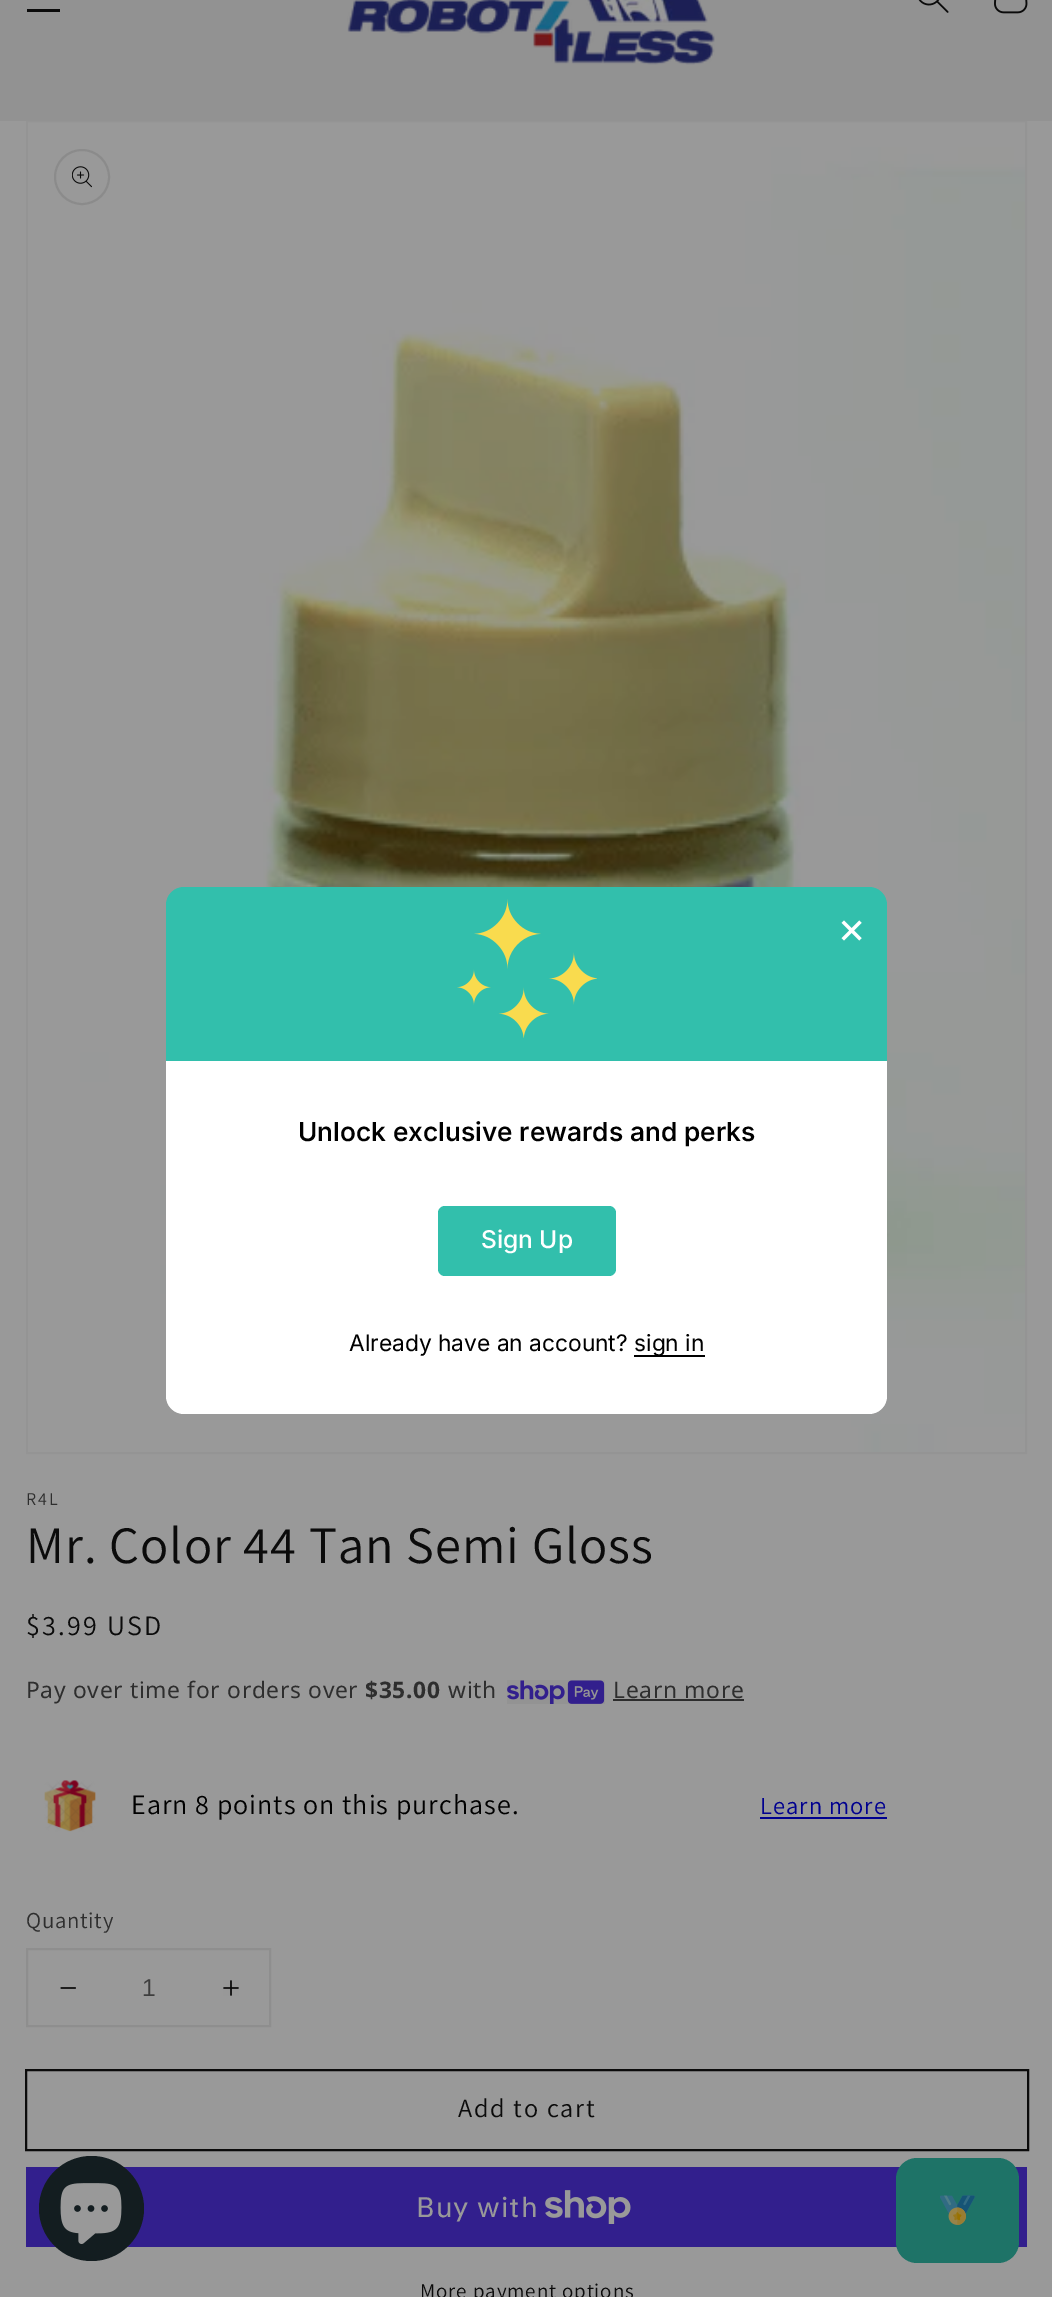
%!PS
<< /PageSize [1052 2297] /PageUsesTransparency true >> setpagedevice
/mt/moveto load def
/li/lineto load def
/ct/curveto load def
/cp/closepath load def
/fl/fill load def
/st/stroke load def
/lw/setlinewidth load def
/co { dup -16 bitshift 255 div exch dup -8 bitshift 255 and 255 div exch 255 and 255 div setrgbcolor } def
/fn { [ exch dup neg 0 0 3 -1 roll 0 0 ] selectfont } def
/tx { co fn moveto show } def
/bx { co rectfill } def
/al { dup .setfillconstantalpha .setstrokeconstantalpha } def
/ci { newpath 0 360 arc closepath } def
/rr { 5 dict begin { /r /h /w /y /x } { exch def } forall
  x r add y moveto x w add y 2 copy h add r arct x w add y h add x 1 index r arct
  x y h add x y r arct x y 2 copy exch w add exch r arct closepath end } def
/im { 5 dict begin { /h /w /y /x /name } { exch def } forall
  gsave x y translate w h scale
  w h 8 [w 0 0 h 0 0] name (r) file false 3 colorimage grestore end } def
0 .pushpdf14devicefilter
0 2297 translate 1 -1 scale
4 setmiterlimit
0 0 1052 2297 16#999999 bx
0 0 1052 121 16#929292 bx
27 9 33 3 16#0B0B0B bx
(media/1.raw) 347 0 368 65 im
(media/2.raw) 918 0 31 13 im
(media/3.raw) 994 0 34 14 im
16#949494 co
2 lw
27 122 999 1331 rectstroke
(media/6.raw) 28 122 997 1330 im
16#32BFAC co
184 887 mt 869 887 li 879 887 887 895 887 905 ct 887 1061 li 166 1061 li 166 905 li 166 895 174 887 184 887 ct cp fl
(media/4.raw) 457 899 140 139 im
16#FFFFFF co
166 1061 mt 887 1061 li 887 1396 li 887 1406 879 1414 869 1414 ct 184 1414 li 174 1414 166 1406 166 1396 ct cp fl
16#32BFAC co
438 1206 178 70 7 rr fl
634 1355 71 2 16#000000 bx
26 2167 1001 80 16#321F8D bx
16#1E7367 co
896 2158 123 105 21 rr fl
(media/5.raw) 940 2195 35 30 im
16#8B8B8B co
82 177 27 ci st
(media/7.raw) 72 166 20 22 im
(media/8.raw) 507 1680 98 24 im
613 1699 131 2 16#2D2D2D bx
(media/9.raw) 44 1780 52 52 im
760 1817 127 2 16#00008F bx
0.08 al
16#0B0B0B co
27 1949 243 77 rectstroke
1 al
(media/10.raw) 60 1987 16 2 im
(media/11.raw) 223 1980 16 16 im
26 2070 1002 80 rectstroke
(media/12.raw) 545 2190 86 34 im
16#131D20 co
91.5 2208.5 52.5 ci fl
(media/13.raw) 60 2183 62 61 im
(×) 837 943 /Inter-Regular 44 16#FFFFFF tx
(Unlock exclusive rewards and perks) 298 1141 /Inter-Medium 26.25 16#000000 tx
(Sign Up) 481 1248 /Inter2-Medium 24.5 16#FFFFFF tx
(Already have an account?) 349 1351 /Inter-Regular 22.75 16#000000 tx
(sign in) 634 1351 /Inter-Regular 22.75 16#000000 tx
/Assistant-Regular 18 fn
16#2E2E2E co
26 1505 mt 2.25 0 (R4L) ashow
/Assistant-Regular 52.5 fn
16#0B0B0B co
26 1563 mt 1.05 0 (Mr. Color 44 Tan Semi Gloss) ashow
/Assistant-Regular 28 fn
26 1635 mt 2.25 0 ($3.99 USD) ashow
/NotoSans-Regular 22.75 fn
16#2E2E2E co
26 1698 mt .7 0 (Pay over time for orders over) ashow
/NotoSans-Bold 22.75 fn
365 1698 mt .7 0 ($35.00) ashow
/NotoSans-Regular 22.75 fn
448 1698 mt .7 0 (with) ashow
613 1698 mt .7 0 (Learn more) ashow
/Assistant-Regular 28 fn
16#000000 co
131 1814 mt 1.05 0 (Earn 8 points on this purchase.) ashow
/Assistant-Regular 24.5 fn
16#00008F co
760 1814 mt 1.05 0 (Learn more) ashow
/Assistant-Regular 22.75 fn
16#2E2E2E co
26 1928 mt .7 0 (Quantity) ashow
(1) 142 1996 /LiberationSans-Regular 24.5 16#3E3E3E tx
/Assistant-Regular 26.25 fn
16#0B0B0B co
458 2117 mt 1.75 0 (Add to cart) ashow
/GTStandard-Regular 28 fn
16#999999 co
416 2217 mt 1.05 0 (Buy with) ashow
/Assistant-Regular 21 fn
16#0B0B0B co
420 2298 mt .9 0 (More payment options) ashow
.poppdf14devicefilter showpage
